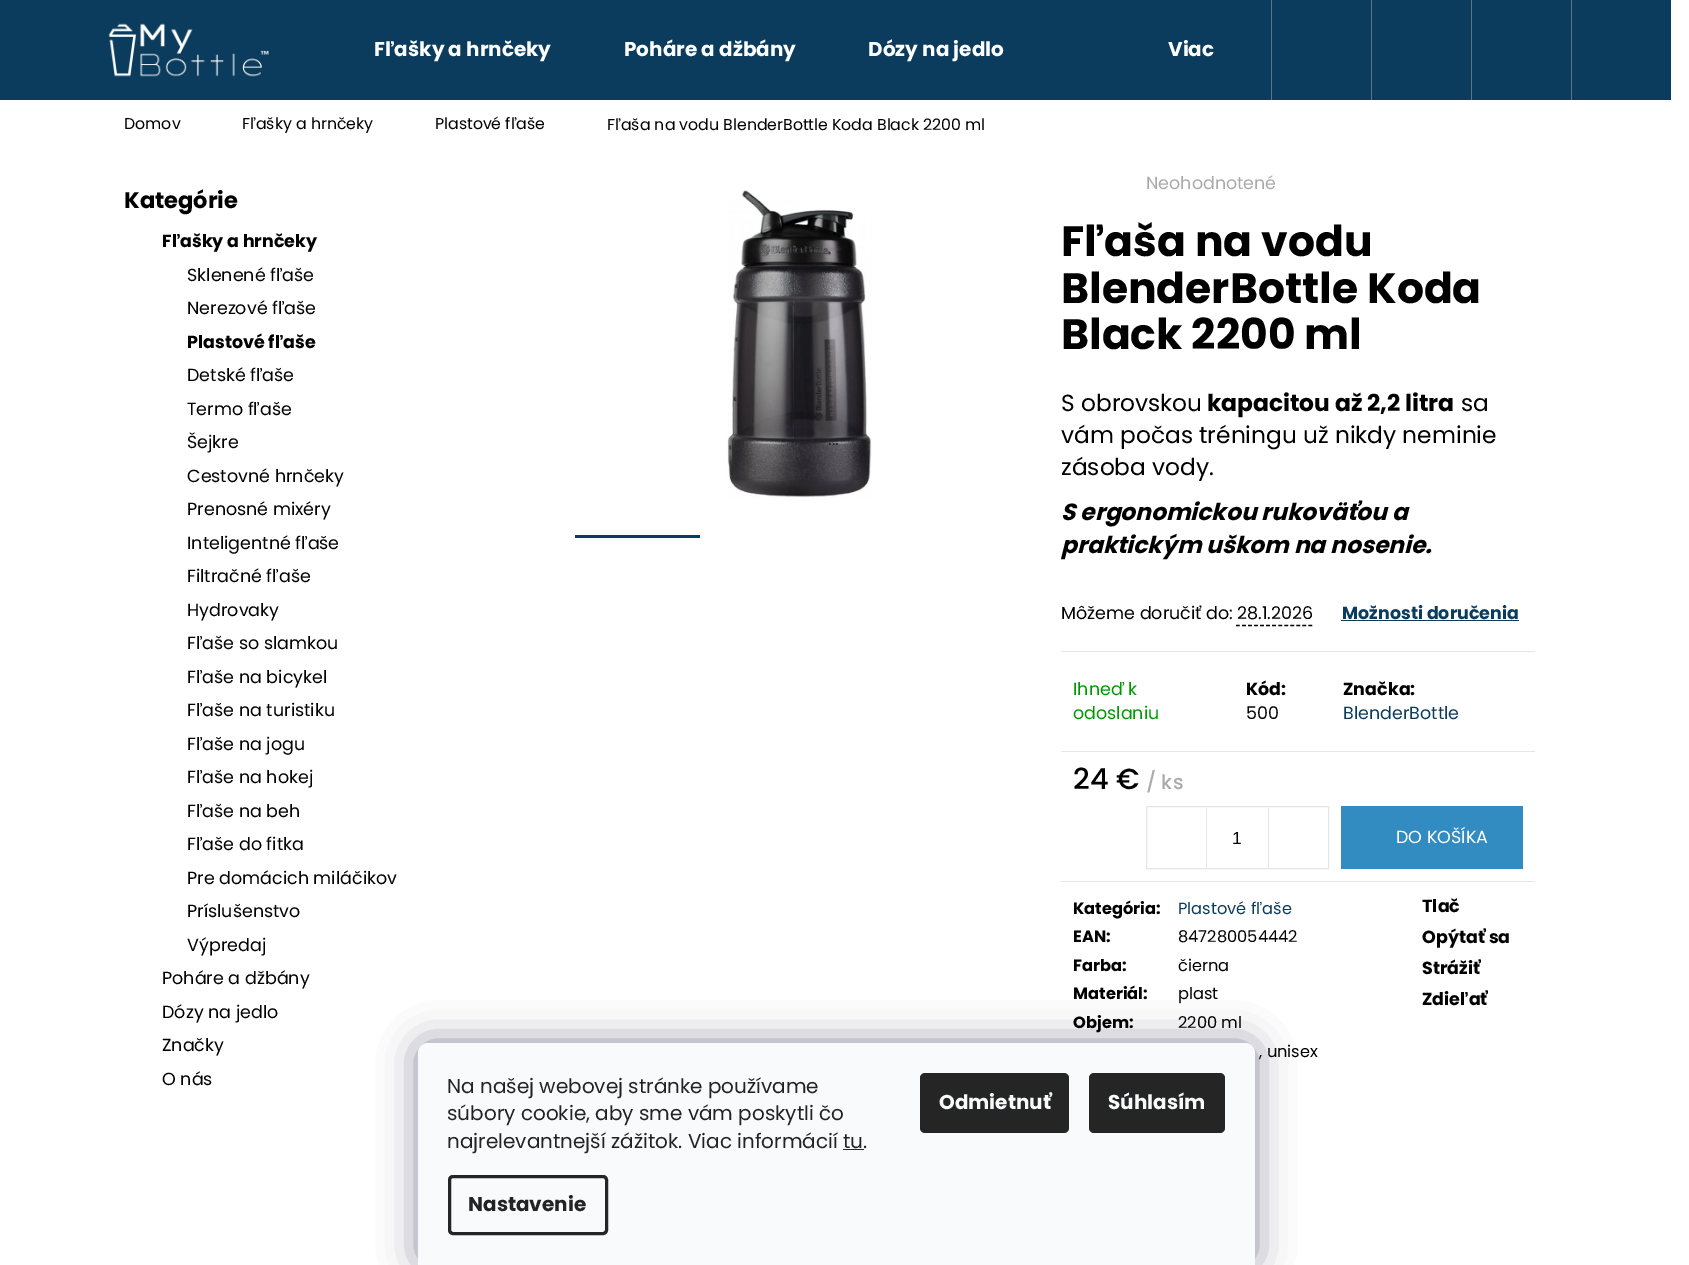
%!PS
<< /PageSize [1689 1265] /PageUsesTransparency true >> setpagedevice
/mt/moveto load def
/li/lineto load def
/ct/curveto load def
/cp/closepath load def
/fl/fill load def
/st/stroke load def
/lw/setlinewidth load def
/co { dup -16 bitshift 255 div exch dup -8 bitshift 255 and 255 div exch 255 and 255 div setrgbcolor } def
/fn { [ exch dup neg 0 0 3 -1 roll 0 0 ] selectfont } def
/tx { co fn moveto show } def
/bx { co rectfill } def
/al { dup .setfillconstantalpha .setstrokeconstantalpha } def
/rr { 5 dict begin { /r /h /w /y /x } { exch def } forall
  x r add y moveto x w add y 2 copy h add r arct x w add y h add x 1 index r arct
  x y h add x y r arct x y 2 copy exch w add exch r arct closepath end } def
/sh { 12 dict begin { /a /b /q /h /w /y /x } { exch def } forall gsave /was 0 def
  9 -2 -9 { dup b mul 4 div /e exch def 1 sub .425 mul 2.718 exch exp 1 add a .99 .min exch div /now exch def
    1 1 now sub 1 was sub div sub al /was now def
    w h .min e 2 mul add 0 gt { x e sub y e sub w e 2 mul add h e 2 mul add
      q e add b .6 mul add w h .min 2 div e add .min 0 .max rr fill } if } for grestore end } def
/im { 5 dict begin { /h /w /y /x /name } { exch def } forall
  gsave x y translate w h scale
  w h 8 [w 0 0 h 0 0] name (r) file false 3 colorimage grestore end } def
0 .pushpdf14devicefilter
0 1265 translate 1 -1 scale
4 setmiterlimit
0 0 1689 1265 16#FFFFFF bx
0 0 1671 100 16#0B3C5D bx
(media/1.raw) 108 23 161 54 im
1571 0 1 100 16#54778E bx
1271 0 1 100 16#54778E bx
1371 0 1 100 16#54778E bx
1471 0 1 100 16#54778E bx
(media/2.raw) 727 190 145 308 im
575 535 125 3 16#0B3C5D bx
16#000000 co
1.2 lw
[3.75 2.29] 0 setdash
1236 625.5 mt 1312.5 625.5 li st
1341 620 178 1 16#0B3C5D bx
1061 651 474 1 16#E7E7E7 bx
1061 751 474 1 16#E7E7E7 bx
1061 881 474 1 16#E7E7E7 bx
16#E6E6E6 co
1 lw
[] 0 setdash
1146.5 806.5 182 62 rectstroke
1206 808 1 60 16#E6E6E6 bx
1268 808 1 60 16#E6E6E6 bx
1341 806 182 63 16#328CC1 bx
16#1B1939 co
418 1043 837 222 10 19 .5 sh
16#F8FAFB co
428 1043 mt 1245 1043 li 1250.5 1043 1255 1047.5 1255 1053 ct 1255 1265 li 418 1265 li 418 1053 li 418 1047.5 422.5 1043 428 1043 ct cp fl
16#252525 co
3 lw
449.5 1176.5 157 57 3.5 rr st
920 1073 149 60 5 rr fl
1089 1073 136 60 5 rr fl
(Fľašky a hrnčeky) 374 56 /Poppins-Bold 20 16#FFFFFF tx
(Poháre a džbány) 624 56 /Poppins-Bold 20 16#FFFFFF tx
(Dózy na jedlo) 868 56 /Poppins-Bold 20 16#FFFFFF tx
(Viac) 1168 56 /Poppins-Bold 20 16#FFFFFF tx
(Domov) 124 129 /Poppins-Regular 15.75 16#000000 tx
(Fľašky a hrnčeky) 242 129 /Poppins-Regular 15.75 16#000000 tx
(Plastové fľaše) 435 129 /Poppins-Regular 15.75 16#000000 tx
(Fľaša na vodu BlenderBottle Koda Black 2200 ml) 607 130 /Poppins-Regular 15.75 16#000000 tx
(Kategórie) 124 208 /Poppins-Bold 22.5 16#000000 tx
(Fľašky a hrnčeky) 162 247 /Poppins-Bold 17.5 16#000000 tx
(Sklenené fľaše) 187 281 /Poppins-Regular 17.5 16#000000 tx
(Nerezové fľaše) 187 314 /Poppins-Regular 17.5 16#000000 tx
(Plastové fľaše) 187 348 /Poppins-Bold 17.5 16#000000 tx
(Detské fľaše) 187 381 /Poppins-Regular 17.5 16#000000 tx
(Termo fľaše) 187 415 /Poppins-Regular 17.5 16#000000 tx
(Šejkre) 187 448 /Poppins-Regular 17.5 16#000000 tx
(Cestovné hrnčeky) 187 482 /Poppins-Regular 17.5 16#000000 tx
(Prenosné mixéry) 187 515 /Poppins-Regular 17.5 16#000000 tx
(Inteligentné fľaše) 187 549 /Poppins-Regular 17.5 16#000000 tx
(Filtračné fľaše) 187 582 /Poppins-Regular 17.5 16#000000 tx
(Hydrovaky) 187 616 /Poppins-Regular 17.5 16#000000 tx
(Fľaše so slamkou) 187 649 /Poppins-Regular 17.5 16#000000 tx
(Fľaše na bicykel) 187 683 /Poppins-Regular 17.5 16#000000 tx
(Fľaše na turistiku) 187 716 /Poppins-Regular 17.5 16#000000 tx
(Fľaše na jogu) 187 750 /Poppins-Regular 17.5 16#000000 tx
(Fľaše na hokej) 187 783 /Poppins-Regular 17.5 16#000000 tx
(Fľaše na beh) 187 817 /Poppins-Regular 17.5 16#000000 tx
(Fľaše do fitka) 187 850 /Poppins-Regular 17.5 16#000000 tx
(Pre domácich miláčikov) 187 884 /Poppins-Regular 17.5 16#000000 tx
(Príslušenstvo) 187 917 /Poppins-Regular 17.5 16#000000 tx
(Výpredaj) 187 951 /Poppins-Regular 17.5 16#000000 tx
(Poháre a džbány) 162 984 /Poppins-Regular 17.5 16#000000 tx
(Dózy na jedlo) 162 1018 /Poppins-Regular 17.5 16#000000 tx
(Značky) 162 1051 /Poppins-Regular 17.5 16#000000 tx
(O nás) 162 1085 /Poppins-Regular 17.5 16#000000 tx
(...) 828 445 /Poppins-Regular 17.5 16#232325 tx
(Neohodnotené) 1146 189 /Poppins-Regular 17.5 16#AAAAAA tx
(Fľaša na vodu) 1061 256 /Poppins-Bold 42.5 16#000000 tx
(BlenderBottle Koda) 1061 303 /Poppins-Bold 42.5 16#000000 tx
(Black 2200 ml) 1061 349 /Poppins-Bold 42.5 16#000000 tx
(S obrovskou) 1061 411 /Poppins-Regular 23.3 16#000000 tx
(kapacitou až 2,2 litra) 1207 411 /Poppins-Bold 23.3 16#000000 tx
(sa) 1461 411 /Poppins-Regular 23.3 16#000000 tx
(vám počas tréningu už nikdy neminie) 1061 443 /Poppins-Regular 23.3 16#000000 tx
(zásoba vody.) 1061 475 /Poppins-Regular 23.3 16#000000 tx
(S ergonomickou rukoväťou a) 1061 520 /Poppins-BoldItalic 23.3 16#000000 tx
(praktickým uškom na nosenie.) 1061 553 /Poppins-BoldItalic 23.3 16#000000 tx
(Môžeme doručiť do:) 1061 619 /Poppins-Regular 17.5 16#000000 tx
(28.1.2026) 1237 619 /Poppins-Regular 17.5 16#000000 tx
(Možnosti doručenia) 1342 619 /Poppins-Bold 17.5 16#0B3C5D tx
(Ihneď k) 1073 695 /Poppins-Regular 17.5 16#009901 tx
(odoslaniu) 1073 719 /Poppins-Regular 17.5 16#009901 tx
(Kód:) 1246 695 /Poppins-Bold 17.5 16#000000 tx
(500) 1246 719 /Poppins-Regular 17.5 16#000000 tx
(Značka:) 1343 695 /Poppins-Bold 17.5 16#000000 tx
(BlenderBottle) 1343 719 /Poppins-Regular 17.5 16#0B3C5D tx
(24 €) 1073 789 /Poppins-Medium 29 16#000000 tx
(/ ks) 1146 789 /Poppins-Medium 20 16#AAAAAA tx
(1) 1232 844 /LiberationSans-Regular 17.5 16#000000 tx
(DO KOŠÍKA) 1396 843 /Poppins-Regular 17.5 16#FFFFFF tx
(Kategória:) 1073 914 /Poppins-Bold 16.25 16#000000 tx
(Plastové fľaše) 1178 914 /Poppins-Regular 16.25 16#0B3C5D tx
(EAN:) 1073 942 /Poppins-Bold 16.25 16#000000 tx
(847280054442) 1178 942 /Poppins-Regular 16.25 16#000000 tx
(Farba:) 1073 971 /Poppins-Bold 16.25 16#000000 tx
(čierna) 1178 971 /Poppins-Regular 16.25 16#000000 tx
(Materiál:) 1073 999 /Poppins-Bold 16.25 16#000000 tx
(plast) 1178 999 /Poppins-Regular 16.25 16#000000 tx
(Objem:) 1073 1028 /Poppins-Bold 16.25 16#000000 tx
(2200 ml) 1178 1028 /Poppins-Regular 16.25 16#000000 tx
(, unisex) 1259 1057 /Poppins-Regular 16.25 16#000000 tx
(Tlač) 1422 912 /Poppins-Bold 17.5 16#000000 tx
(Opýtať sa) 1422 943 /Poppins-Bold 17.5 16#000000 tx
(Strážiť) 1422 974 /Poppins-Bold 17.5 16#000000 tx
(Zdieľať) 1422 1005 /Poppins-Bold 17.5 16#000000 tx
(Na našej webovej stránke používame) 447 1093 /Poppins-Regular 20 16#232325 tx
(súbory cookie, aby sme vám poskytli čo) 447 1120 /Poppins-Regular 20 16#232325 tx
(najrelevantnejší zážitok. Viac informácií tu.) 447 1148 /Poppins-Regular 20 16#232325 tx
843 1149 21 1 16#252525 bx
(Nastavenie) 468 1211 /Poppins-Bold 20 16#232325 tx
(Odmietnuť) 939 1109 /Poppins-Bold 20 16#F8FAFB tx
(Súhlasím) 1108 1109 /Poppins-Bold 20 16#F8FAFB tx
.poppdf14devicefilter showpage
